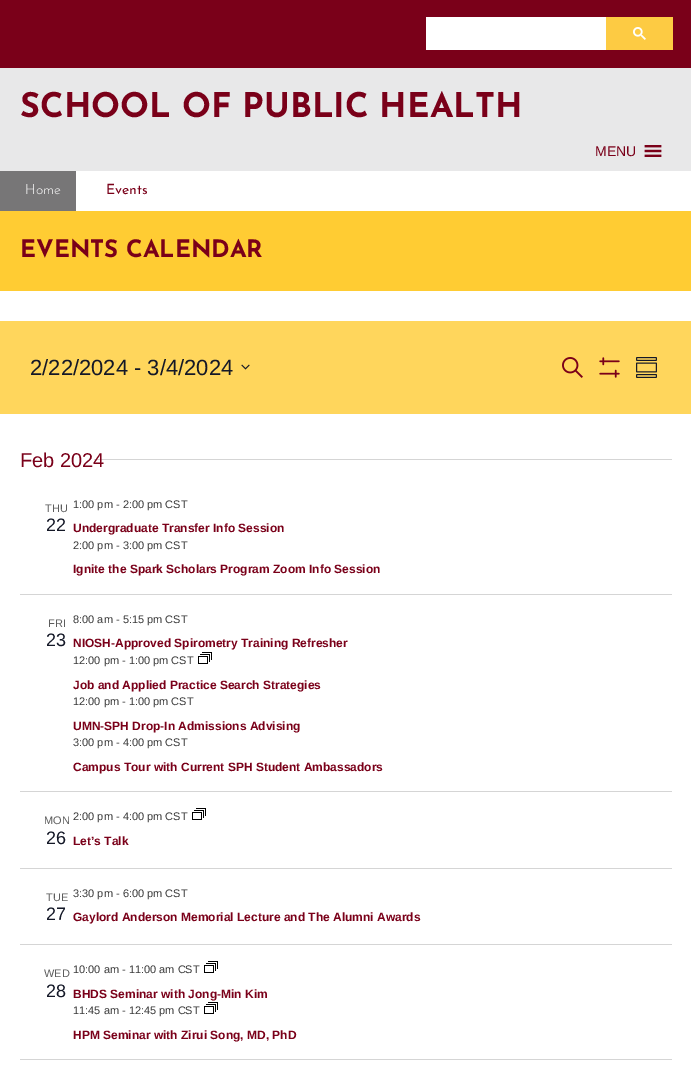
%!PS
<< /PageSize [691 1091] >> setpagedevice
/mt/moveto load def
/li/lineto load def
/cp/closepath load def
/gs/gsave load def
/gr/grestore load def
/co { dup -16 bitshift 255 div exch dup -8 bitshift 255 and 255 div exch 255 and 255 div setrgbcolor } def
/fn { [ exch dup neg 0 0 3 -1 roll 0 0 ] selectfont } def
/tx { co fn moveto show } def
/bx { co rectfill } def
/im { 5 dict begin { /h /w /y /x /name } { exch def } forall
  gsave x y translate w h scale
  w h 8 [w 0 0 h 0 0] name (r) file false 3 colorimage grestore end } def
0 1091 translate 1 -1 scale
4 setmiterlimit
0 0 691 1091 16#FFFFFF bx
0 0 691 68 16#7A0019 bx
426 17 180 33 16#FFFFFF bx
606 17 67 33 16#FDCB43 bx
(media/1.raw) 633 27 13 13 im
0 68 691 103 16#E8E8E9 bx
(media/2.raw) 644 145 18 12 im
gs 0 171 mt 352 171 li 352 211 li 0 211 li cp clip newpath
<< /ShadingType 2 /ColorSpace /DeviceRGB /Coords [0 191 691 191] /Extend [true true] /Function << /FunctionType 3 /Domain [0 1] /Functions [<< /FunctionType 2 /Domain [0 1] /C0 [.467 .463 .467] /C1 [.467 .463 .467] /N 1 >> << /FunctionType 2 /Domain [0 1] /C0 [.467 .463 .467] /C1 [1 1 1] /N 1 >> << /FunctionType 2 /Domain [0 1] /C0 [1 1 1] /C1 [1 1 1] /N 1 >>] /Bounds [.5 .51] /Encode [0 1 0 1 0 1] >> >> shfill gr
76 171 276 40 16#FFFFFF bx
0 211 691 80 16#FFCC33 bx
0 321 691 93 16#FFD65C bx
(media/3.raw) 241 364 9 6 im
(media/4.raw) 562 357 21 21 im
(media/5.raw) 599 357 21 21 im
(media/6.raw) 636 357 21 21 im
94 459 578 1 16#D5D5D5 bx
20 594 652 1 16#D5D5D5 bx
20 791 652 1 16#D5D5D5 bx
(media/7.raw) 198 652 14 12 im
20 868 652 1 16#D5D5D5 bx
(media/7.raw) 192 808 14 12 im
20 944 652 1 16#D5D5D5 bx
20 1059 652 1 16#D5D5D5 bx
(media/7.raw) 204 961 14 12 im
(media/7.raw) 204 1002 14 12 im
(SCHOOL OF PUBLIC HEALTH) 20 117 /JosefinSans-Bold 34 16#7A0019 tx
(MENU) 595 156 /LiberationSans-Regular 14 16#7A0019 tx
(Home) 25 194 /JosefinSans-Light 14 16#FFFFFF tx
(Events) 106 194 /JosefinSans-Regular 14 16#7A0019 tx
(EVENTS CALENDAR) 20 257 /JosefinSans-Bold 24 16#7A0019 tx
(2/22/2024 - 3/4/2024) 30 375 /LiberationSans-Regular 22 16#141827 tx
(Feb 2024) 20 467 /LiberationSans-Regular 20 16#7A0019 tx
(THU) 45 512 /LiberationSans-Regular 11 16#5D5D5D tx
(22) 46 531 /LiberationSans-Regular 18 16#141827 tx
(1:00 pm - 2:00 pm CST) 73 508 /LiberationSans-Regular 11 16#3A3A3A tx
(Undergraduate Transfer Info Session) 73 532 /LiberationSans-Bold 12 16#7A0019 tx
(2:00 pm - 3:00 pm CST) 73 549 /LiberationSans-Regular 11 16#3A3A3A tx
(Ignite the Spark Scholars Program Zoom Info Session) 73 573 /LiberationSans-Bold 12 16#7A0019 tx
(FRI) 48 627 /LiberationSans-Regular 11 16#5D5D5D tx
(23) 46 646 /LiberationSans-Regular 18 16#141827 tx
(8:00 am - 5:15 pm CST) 73 623 /LiberationSans-Regular 11 16#3A3A3A tx
(NIOSH-Approved Spirometry Training Refresher) 73 647 /LiberationSans-Bold 12 16#7A0019 tx
(12:00 pm - 1:00 pm CST) 73 664 /LiberationSans-Regular 11 16#3A3A3A tx
(Job and Applied Practice Search Strategies) 73 689 /LiberationSans-Bold 12 16#7A0019 tx
(12:00 pm - 1:00 pm CST) 73 705 /LiberationSans-Regular 11 16#3A3A3A tx
(UMN-SPH Drop-In Admissions Advising) 73 730 /LiberationSans-Bold 12 16#7A0019 tx
(3:00 pm - 4:00 pm CST) 73 746 /LiberationSans-Regular 11 16#3A3A3A tx
(Campus Tour with Current SPH Student Ambassadors) 73 771 /LiberationSans-Bold 12 16#7A0019 tx
(MON) 44 824 /LiberationSans-Regular 11 16#5D5D5D tx
(26) 46 844 /LiberationSans-Regular 18 16#141827 tx
(2:00 pm - 4:00 pm CST) 73 820 /LiberationSans-Regular 11 16#3A3A3A tx
(Let’s Talk) 73 845 /LiberationSans-Bold 12 16#7A0019 tx
(TUE) 46 901 /LiberationSans-Regular 11 16#5D5D5D tx
(27) 46 920 /LiberationSans-Regular 18 16#141827 tx
(3:30 pm - 6:00 pm CST) 73 897 /LiberationSans-Regular 11 16#3A3A3A tx
(Gaylord Anderson Memorial Lecture and The Alumni Awards) 73 921 /LiberationSans-Bold 12 16#7A0019 tx
(WED) 44 977 /LiberationSans-Regular 11 16#5D5D5D tx
(28) 46 997 /LiberationSans-Regular 18 16#141827 tx
(10:00 am - 11:00 am CST) 73 973 /LiberationSans-Regular 11 16#3A3A3A tx
(BHDS Seminar with Jong-Min Kim) 73 998 /LiberationSans-Bold 12 16#7A0019 tx
(11:45 am - 12:45 pm CST) 73 1014 /LiberationSans-Regular 11 16#3A3A3A tx
(HPM Seminar with Zirui Song, MD, PhD) 73 1039 /LiberationSans-Bold 12 16#7A0019 tx
showpage
